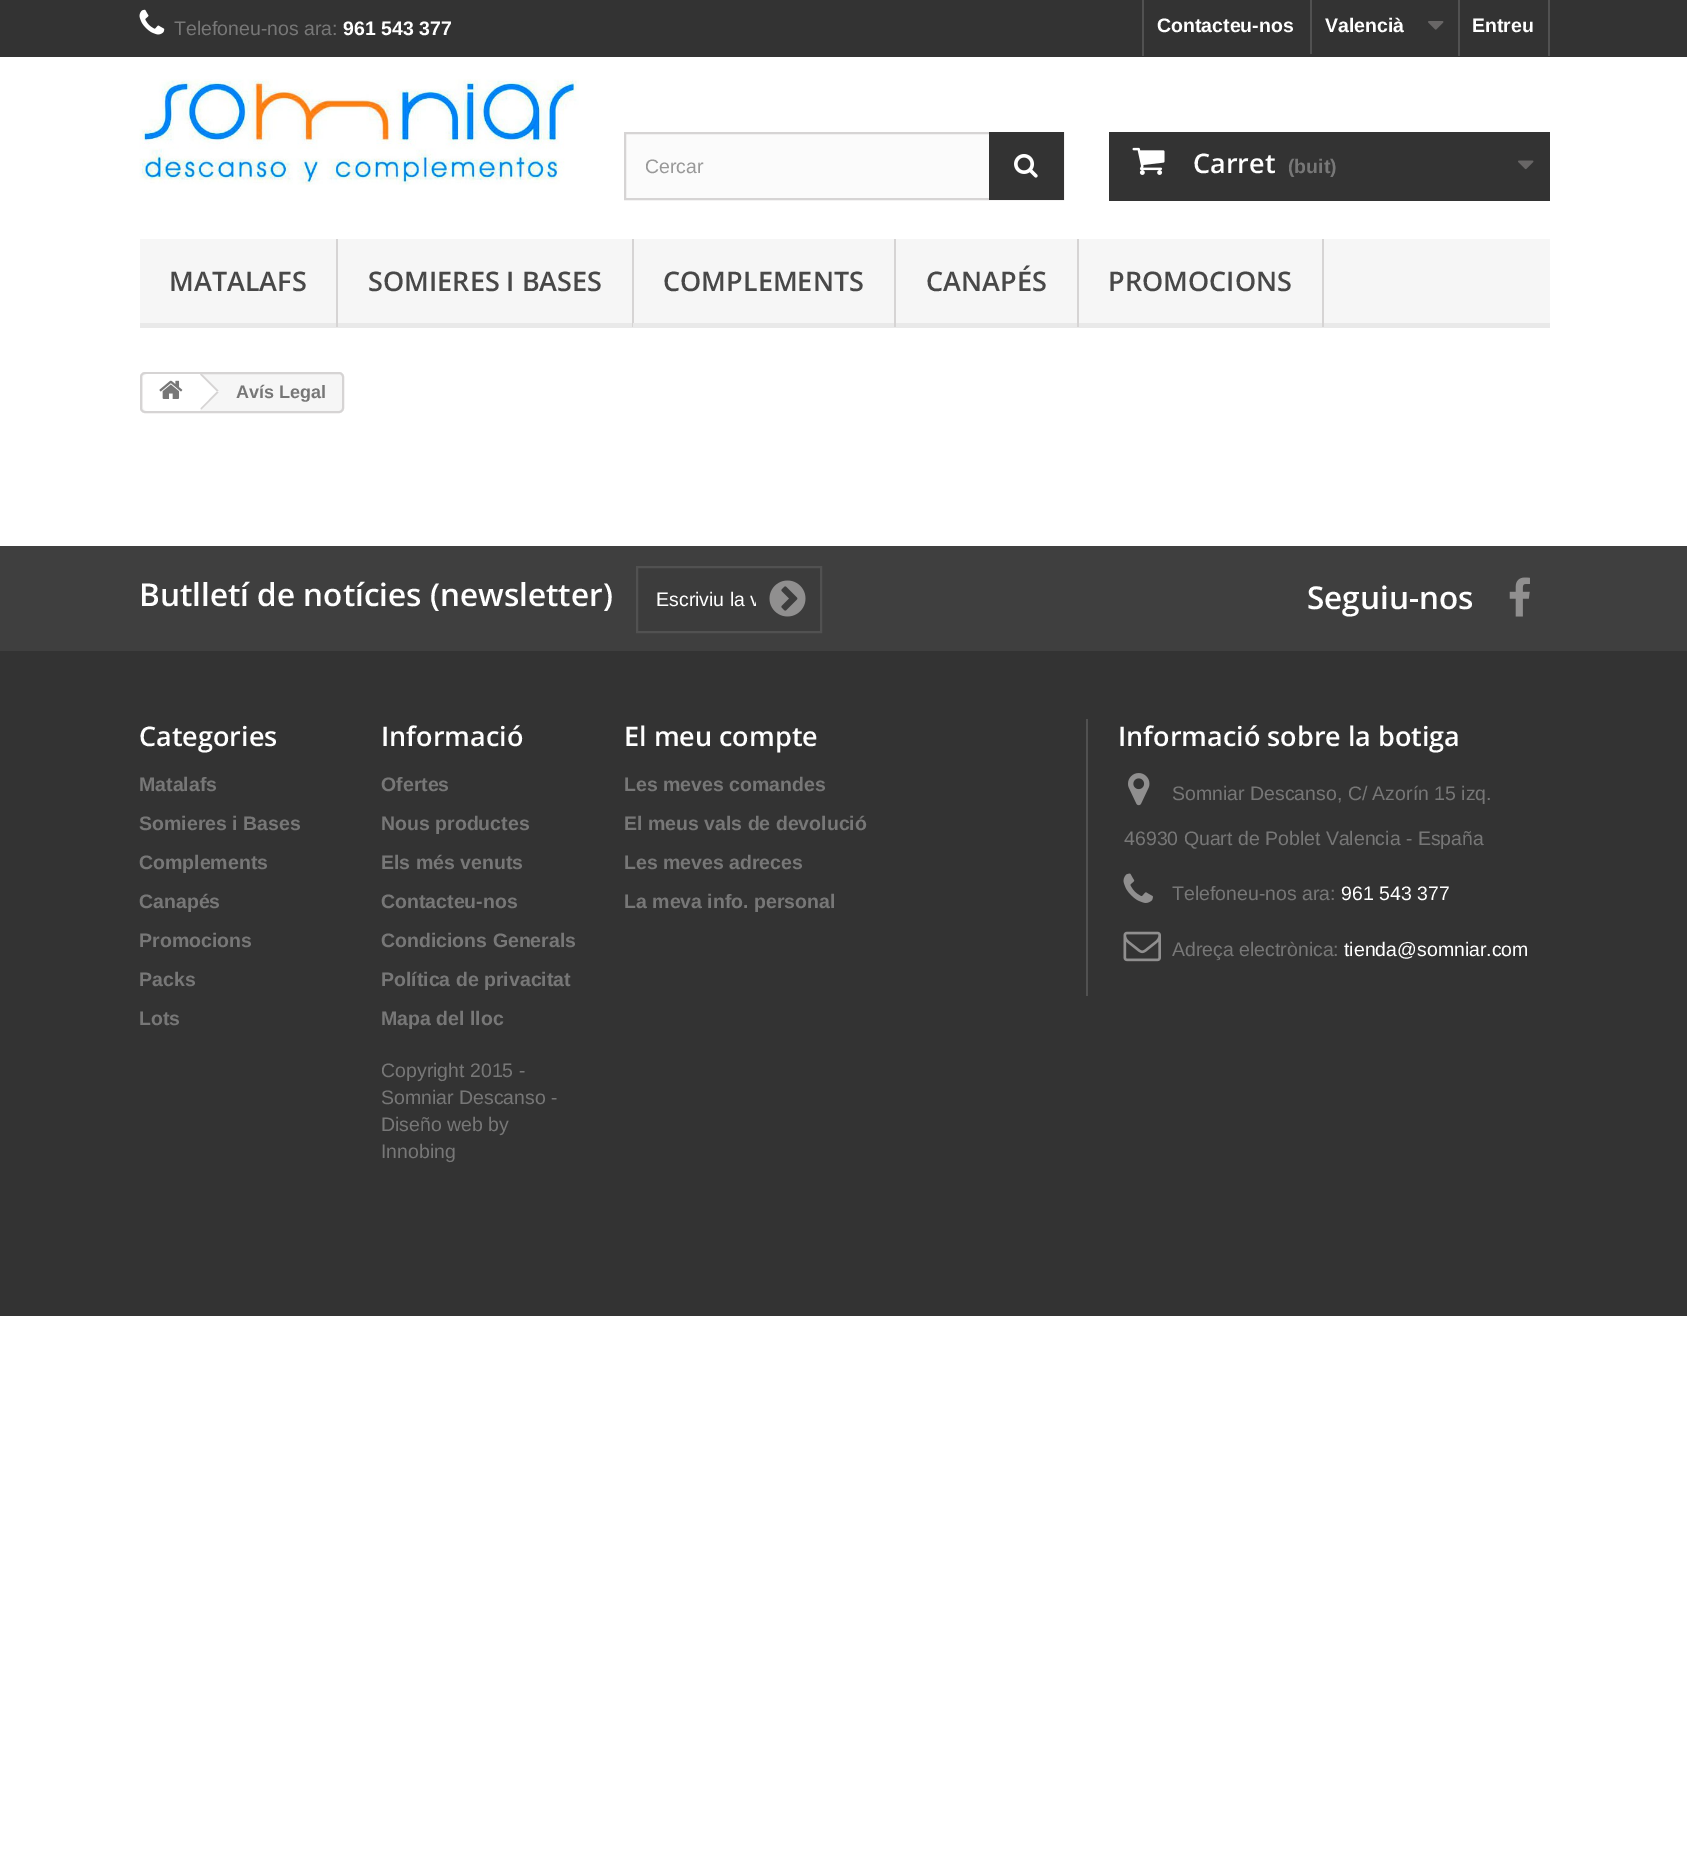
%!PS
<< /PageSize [1687 1858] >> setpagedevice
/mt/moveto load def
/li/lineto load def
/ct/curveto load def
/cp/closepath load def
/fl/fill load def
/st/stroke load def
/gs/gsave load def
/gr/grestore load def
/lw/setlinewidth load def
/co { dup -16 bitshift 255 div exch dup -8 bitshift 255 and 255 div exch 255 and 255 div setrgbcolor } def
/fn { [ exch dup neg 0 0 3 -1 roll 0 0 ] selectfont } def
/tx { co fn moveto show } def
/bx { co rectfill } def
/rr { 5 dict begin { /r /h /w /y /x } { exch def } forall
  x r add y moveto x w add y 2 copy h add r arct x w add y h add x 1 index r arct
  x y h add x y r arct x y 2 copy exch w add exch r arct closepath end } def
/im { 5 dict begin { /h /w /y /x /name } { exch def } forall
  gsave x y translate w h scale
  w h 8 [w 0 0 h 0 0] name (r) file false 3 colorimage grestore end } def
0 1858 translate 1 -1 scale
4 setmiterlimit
0 0 1687 1858 16#FFFFFF bx
0 0 1687 57 16#333333 bx
(media/1.raw) 139 9 26 26 im
1142 0 2 56 16#515151 bx
1310 0 2 54 16#515151 bx
(media/2.raw) 1428 21 16 9 im
1548 0 2 56 16#515151 bx
1458 0 2 56 16#515151 bx
(media/3.raw) 139 79 440 106 im
626 134 363 64 16#FBFBFB bx
16#D6D4D4 co
2 lw
625 133 438 66 rectstroke
989 132 75 68 16#333333 bx
(media/4.raw) 1014 154 24 24 im
1109 132 441 69 16#333333 bx
(media/5.raw) 1132 147 33 28 im
(media/6.raw) 1518 160 16 10 im
140 239 1410 84 16#F6F6F6 bx
140 323 1410 5 16#E9E9E9 bx
336 239 2 88 16#D6D4D4 bx
632 239 2 88 16#D6D4D4 bx
894 239 2 88 16#D6D4D4 bx
633 323 1 4 16#E9E9E9 bx
1077 239 2 88 16#D6D4D4 bx
1322 239 2 88 16#D6D4D4 bx
16#F6F6F6 co
141 373 202 39 4 rr gs fl gr
16#D6D4D4 co
st
16#FFFFFF co
148 374 mt 200 374 li 200 411 li 148 411 li 145 411 143 409 143 406 ct 143 379 li 143 376 145 374 148 374 ct cp fl
202.5 374.5 mt 201.5 374 li 199 374 li 198 374.5 li 183.5 389.5 li 182 390.5 182 392.5 183.5 393.5 ct 198 408.5 li 199.5 409.5 201 409.5 202.5 408.5 ct 217 393.5 li 218.5 392.5 218.5 390.5 217 389.5 ct cp fl
(media/7.raw) 159 380 24 19 im
16#D6D4D4 co
202 374 mt 218.5 390.5 li 217 391.5 li 200 374.5 li 201 374 li cp fl
217 391.5 mt 218.5 392.5 li 201.5 409.5 li 200.5 408.5 li cp fl
0 651 1687 665 16#333333 bx
0 546 1687 105 16#3F3F3F bx
16#3C3C3C co
637 567 mt 821 567 li 821 632 li 637 632 li cp gs fl gr
16#515151 co
st
(media/8.raw) 769 580 37 37 im
(media/9.raw) 1509 577 21 40 im
1086 719 2 277 16#515151 bx
(media/10.raw) 1128 773 22 33 im
(media/11.raw) 1123 873 30 30 im
(media/12.raw) 1123 931 38 31 im
(Telefoneu-nos ara:) 174 35 /LiberationSans-Regular 19.5 16#777777 tx
(961 543 377) 343 35 /LiberationSans-Bold 19.5 16#FFFFFF tx
(Contacteu-nos) 1157 32 /LiberationSans-Bold 19.5 16#FFFFFF tx
(Valencià) 1325 32 /LiberationSans-Bold 19.5 16#FFFFFF tx
(Entreu) 1472 32 /LiberationSans-Bold 19.5 16#FFFFFF tx
(Cercar) 645 173 /LiberationSans-Regular 19.5 16#999999 tx
(Carret) 1193 173 /OpenSans-SemiBold 27 16#FFFFFF tx
(\(buit\)) 1288 173 /LiberationSans-Bold 19.5 16#777777 tx
(MATALAFS) 169 291 /OpenSans-SemiBold 27 16#484848 tx
(SOMIERES I BASES) 368 291 /OpenSans-SemiBold 27 16#484848 tx
(COMPLEMENTS) 663 291 /OpenSans-SemiBold 27 16#484848 tx
(CANAPÉS) 926 291 /OpenSans-SemiBold 27 16#484848 tx
(PROMOCIONS) 1108 291 /OpenSans-SemiBold 27 16#484848 tx
(Avís Legal) 236 398 /LiberationSans-Bold 18 16#777777 tx
(Butlletí de notícies \(newsletter\)) 139 606 /OpenSans-SemiBold 31.5 16#FFFFFF tx
gs
656 588 100 23 rectclip
(Escriviu la v) 656 606 /LiberationSans-Regular 19.5 16#FFFFFF tx
gr
(Seguiu-nos) 1307 609 /OpenSans-SemiBold 31.5 16#FFFFFF tx
(Categories) 139 746 /OpenSans-SemiBold 27 16#FFFFFF tx
(Matalafs) 139 791 /LiberationSans-Bold 19.5 16#777777 tx
(Somieres i Bases) 139 830 /LiberationSans-Bold 19.5 16#777777 tx
(Complements) 139 869 /LiberationSans-Bold 19.5 16#777777 tx
(Canapés) 139 908 /LiberationSans-Bold 19.5 16#777777 tx
(Promocions) 139 947 /LiberationSans-Bold 19.5 16#777777 tx
(Packs) 139 986 /LiberationSans-Bold 19.5 16#777777 tx
(Lots) 139 1025 /LiberationSans-Bold 19.5 16#777777 tx
(Informació) 381 746 /OpenSans-SemiBold 27 16#FFFFFF tx
(Ofertes) 381 791 /LiberationSans-Bold 19.5 16#777777 tx
(Nous productes) 381 830 /LiberationSans-Bold 19.5 16#777777 tx
(Els més venuts) 381 869 /LiberationSans-Bold 19.5 16#777777 tx
(Contacteu-nos) 381 908 /LiberationSans-Bold 19.5 16#777777 tx
(Condicions Generals) 381 947 /LiberationSans-Bold 19.5 16#777777 tx
(Política de privacitat) 381 986 /LiberationSans-Bold 19.5 16#777777 tx
(Mapa del lloc) 381 1025 /LiberationSans-Bold 19.5 16#777777 tx
(Copyright 2015 -) 381 1077 /LiberationSans-Regular 19.5 16#777777 tx
(Somniar Descanso -) 381 1104 /LiberationSans-Regular 19.5 16#777777 tx
(Diseño web by) 381 1131 /LiberationSans-Regular 19.5 16#777777 tx
(Innobing) 381 1158 /LiberationSans-Regular 19.5 16#777777 tx
(El meu compte) 624 746 /OpenSans-SemiBold 27 16#FFFFFF tx
(Les meves comandes) 624 791 /LiberationSans-Bold 19.5 16#777777 tx
(El meus vals de devolució) 624 830 /LiberationSans-Bold 19.5 16#777777 tx
(Les meves adreces) 624 869 /LiberationSans-Bold 19.5 16#777777 tx
(La meva info. personal) 624 908 /LiberationSans-Bold 19.5 16#777777 tx
(Informació sobre la botiga) 1118 746 /OpenSans-SemiBold 27 16#FFFFFF tx
(Somniar Descanso, C/ Azorín 15 izq.) 1172 800 /LiberationSans-Regular 19.5 16#777777 tx
(46930 Quart de Poblet Valencia - España) 1124 845 /LiberationSans-Regular 19.5 16#777777 tx
(Telefoneu-nos ara:) 1172 900 /LiberationSans-Regular 19.5 16#777777 tx
(961 543 377) 1341 900 /LiberationSans-Regular 19.5 16#FFFFFF tx
(Adreça electrònica:) 1172 956 /LiberationSans-Regular 19.5 16#777777 tx
(tienda@somniar.com) 1344 956 /LiberationSans-Regular 19.5 16#FFFFFF tx
showpage
